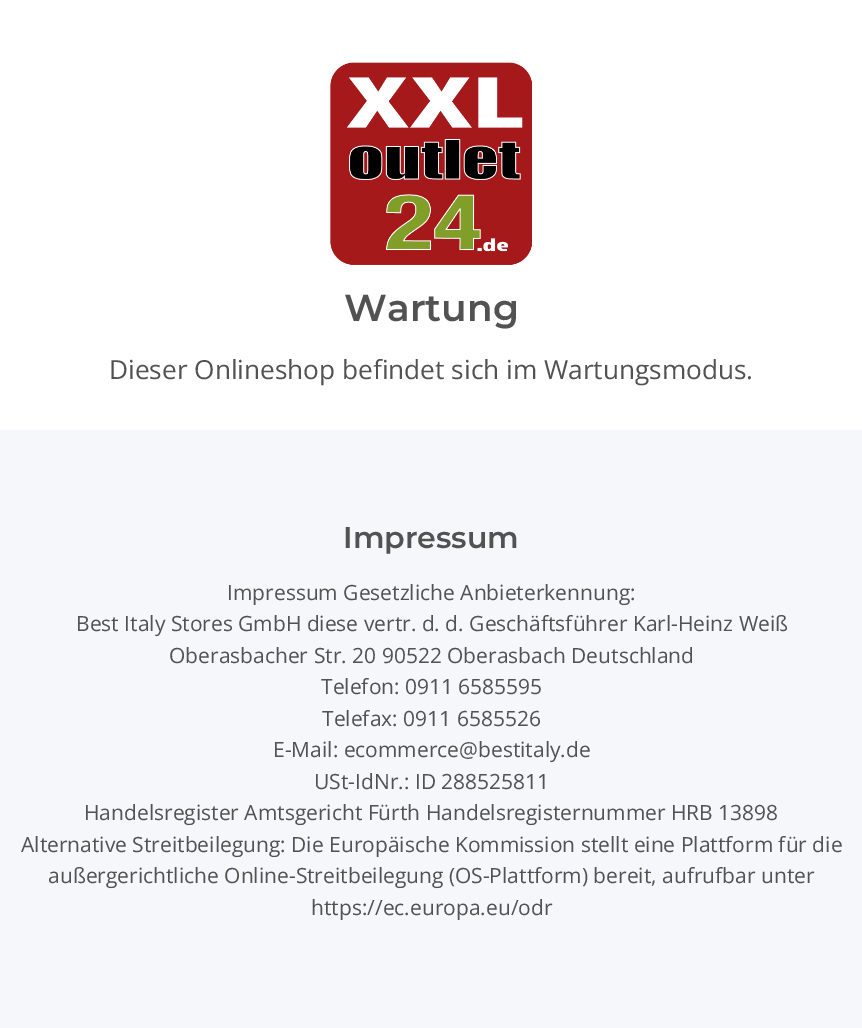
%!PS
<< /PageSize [862 1028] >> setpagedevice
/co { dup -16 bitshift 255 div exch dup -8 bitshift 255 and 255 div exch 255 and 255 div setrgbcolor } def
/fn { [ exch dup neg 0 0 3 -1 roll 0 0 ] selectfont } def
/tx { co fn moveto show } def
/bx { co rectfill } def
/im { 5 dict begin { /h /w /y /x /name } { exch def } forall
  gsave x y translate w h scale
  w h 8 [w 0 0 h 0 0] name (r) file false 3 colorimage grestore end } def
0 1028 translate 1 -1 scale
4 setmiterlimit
0 0 862 1028 16#FFFFFF bx
(media/1.raw) 330 62 202 203 im
0 430 862 598 16#F5F7FA bx
(Wartung) 344 321 /Montserrat-SemiBold 37.5 16#525252 tx
(Dieser Onlineshop befindet sich im Wartungsmodus.) 109 379 /OpenSans-Regular 26.25 16#525252 tx
(Impressum) 343 548 /Montserrat-SemiBold 30 16#525252 tx
(Impressum Gesetzliche Anbieterkennung:) 227 600 /OpenSans-Regular 21 16#525252 tx
(Best Italy Stores GmbH diese vertr. d. d. Geschäftsführer Karl-Heinz Weiß) 76 631 /OpenSans-Regular 21 16#525252 tx
(Oberasbacher Str. 20 90522 Oberasbach Deutschland) 169 663 /OpenSans-Regular 21 16#525252 tx
(Telefon: 0911 6585595) 321 694 /OpenSans-Regular 21 16#525252 tx
(Telefax: 0911 6585526) 322 726 /OpenSans-Regular 21 16#525252 tx
(E-Mail: ecommerce@bestitaly.de) 273 757 /OpenSans-Regular 21 16#525252 tx
(USt-IdNr.: ID 288525811) 314 789 /OpenSans-Regular 21 16#525252 tx
(Handelsregister Amtsgericht Fürth Handelsregisternummer HRB 13898) 84 820 /OpenSans-Regular 21 16#525252 tx
(Alternative Streitbeilegung: Die Europäische Kommission stellt eine Plattform für die) 21 852 /OpenSans-Regular 21 16#525252 tx
(außergerichtliche Online-Streitbeilegung \(OS-Plattform\) bereit, aufrufbar unter) 48 883 /OpenSans-Regular 21 16#525252 tx
(https://ec.europa.eu/odr) 311 915 /OpenSans-Regular 21 16#525252 tx
showpage
